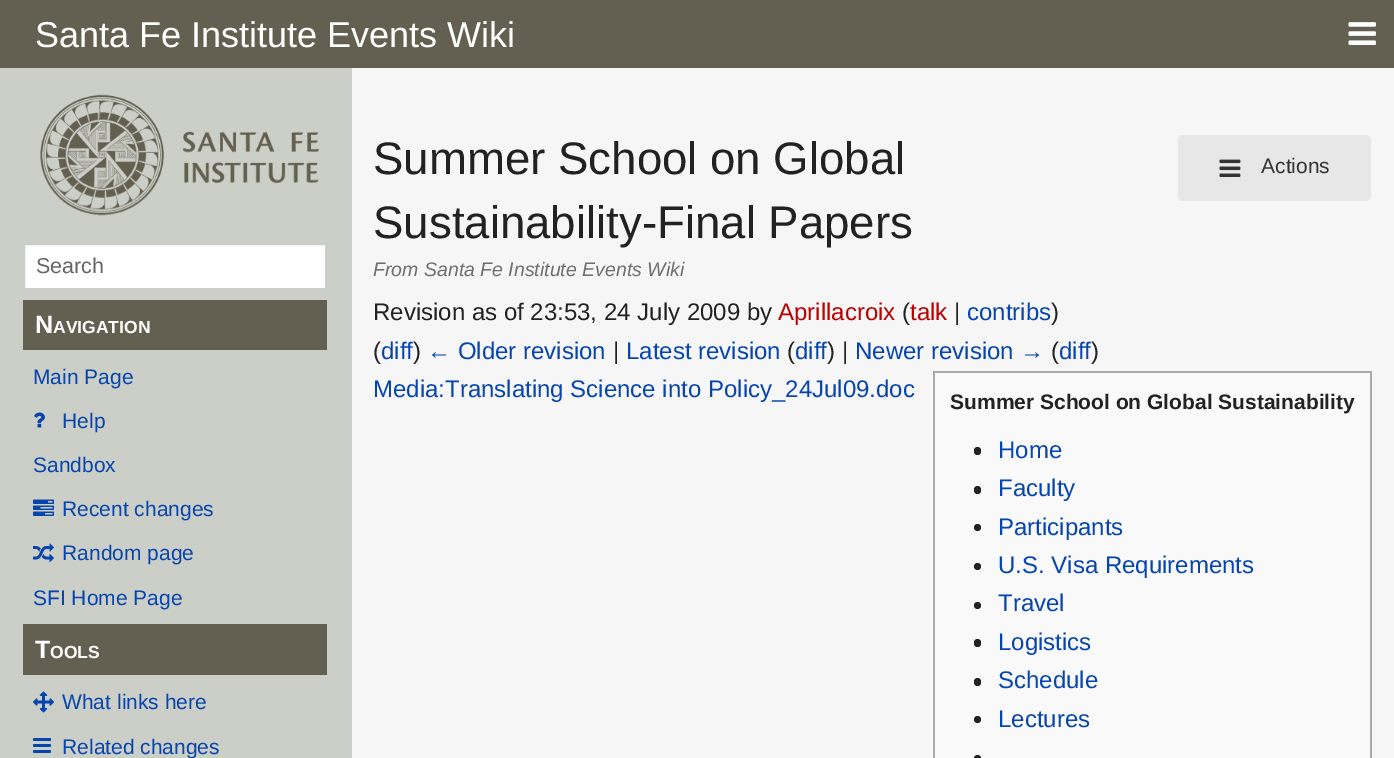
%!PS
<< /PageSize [1394 758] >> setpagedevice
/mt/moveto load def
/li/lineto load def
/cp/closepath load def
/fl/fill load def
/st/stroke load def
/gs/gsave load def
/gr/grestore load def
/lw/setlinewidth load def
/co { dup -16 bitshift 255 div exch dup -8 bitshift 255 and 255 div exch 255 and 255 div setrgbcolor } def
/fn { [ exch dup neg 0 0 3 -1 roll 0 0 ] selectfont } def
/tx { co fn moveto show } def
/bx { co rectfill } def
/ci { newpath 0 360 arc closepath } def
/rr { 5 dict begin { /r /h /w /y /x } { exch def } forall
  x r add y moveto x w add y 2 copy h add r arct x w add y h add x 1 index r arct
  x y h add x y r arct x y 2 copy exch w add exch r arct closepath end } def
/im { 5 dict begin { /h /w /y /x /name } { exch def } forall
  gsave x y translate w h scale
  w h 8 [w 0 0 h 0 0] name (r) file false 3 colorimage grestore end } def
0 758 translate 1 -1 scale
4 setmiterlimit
0 0 1394 758 16#CCCEC8 bx
0 0 1394 68 16#636051 bx
(media/1.raw) 1348 22 28 23 im
(media/2.raw) 40 94 280 122 im
16#FFFFFF co
24 244 mt 326 244 li 326 289 li 24 289 li cp gs fl gr
16#CCCCCC co
2 lw
st
23 300 304 50 16#636051 bx
(media/3.raw) 34 412 11 16 im
(media/4.raw) 33 499 21 17 im
(media/5.raw) 33 543 21 20 im
23 624 304 51 16#636051 bx
(media/6.raw) 33 691 21 22 im
(media/7.raw) 33 738 18 15 im
352 68 1042 690 16#F6F6F6 bx
350 68 2 690 16#CCCCCC bx
935 373 435 385 16#F9F9F9 bx
933 371 438 2 16#AAAAAA bx
1370 371 2 387 16#AAAAAA bx
933 371 2 387 16#AAAAAA bx
16#222222 co
974 447 7 8 3.5 rr fl
974 486 7 8 3.5 rr fl
977.5 527.5 3.5 ci fl
977.5 566.5 3.5 ci fl
977.5 605.5 3.5 ci fl
974 639 7 8 3.5 rr fl
974 678 7 8 3.5 rr fl
977.5 719.5 3.5 ci fl
977.5 758.5 3.5 ci fl
16#E7E7E7 co
1178 135 193 66 5 rr fl
(media/8.raw) 1219 159 22 18 im
(Santa Fe Institute Events Wiki) 35 47 /LiberationSans-Regular 36 16#FFFFFF tx
(Search) 36 273 /LiberationSans-Regular 21.5 16#666666 tx
(N) 35 333 /LiberationSans-Bold 25 16#FFFFFF tx
(AVIGATION) 53 333 /LiberationSans-Bold 17.5 16#FFFFFF tx
(Main Page) 33 384 /LiberationSans-Regular 21 16#0645AD tx
(Help) 62 428 /LiberationSans-Regular 21 16#0645AD tx
(Sandbox) 33 472 /LiberationSans-Regular 21 16#0645AD tx
(Recent changes) 62 516 /LiberationSans-Regular 21 16#0645AD tx
(Random page) 62 560 /LiberationSans-Regular 21 16#0645AD tx
(SFI Home Page) 33 605 /LiberationSans-Regular 21 16#0645AD tx
(T) 35 658 /LiberationSans-Bold 25 16#FFFFFF tx
(OOLS) 50 658 /LiberationSans-Bold 17.5 16#FFFFFF tx
(What links here) 62 709 /LiberationSans-Regular 21 16#0645AD tx
(Related changes) 62 754 /LiberationSans-Regular 21 16#0645AD tx
(Summer School on Global) 373 174 /LiberationSans-Regular 45.6 16#222222 tx
(Sustainability-Final Papers) 373 238 /LiberationSans-Regular 45.6 16#222222 tx
(From Santa Fe Institute Events Wiki) 373 276 /LiberationSans-Italic 19.5 16#6F6F6F tx
(Revision as of 23:53, 24 July 2009 by) 373 320 /LiberationSans-Regular 24 16#222222 tx
(Aprillacroix) 778 320 /LiberationSans-Regular 24 16#BA0000 tx
(\() 902 320 /LiberationSans-Regular 24 16#222222 tx
(talk) 910 320 /LiberationSans-Regular 24 16#BA0000 tx
(|) 954 320 /LiberationSans-Regular 24 16#222222 tx
(contribs) 967 320 /LiberationSans-Regular 24 16#0645AD tx
(\)) 1051 320 /LiberationSans-Regular 24 16#222222 tx
(\() 373 359 /LiberationSans-Regular 24 16#222222 tx
(diff) 381 359 /LiberationSans-Regular 24 16#0645AD tx
(\)) 413 359 /LiberationSans-Regular 24 16#222222 tx
(← Older revision) 427 359 /LiberationSans-Regular 24 16#0645AD tx
(|) 613 359 /LiberationSans-Regular 24 16#222222 tx
(Latest revision) 626 359 /LiberationSans-Regular 24 16#0645AD tx
(\() 787 359 /LiberationSans-Regular 24 16#222222 tx
(diff) 795 359 /LiberationSans-Regular 24 16#0645AD tx
(\) |) 827 359 /LiberationSans-Regular 24 16#222222 tx
(Newer revision →) 855 359 /LiberationSans-Regular 24 16#0645AD tx
(\() 1051 359 /LiberationSans-Regular 24 16#222222 tx
(diff) 1059 359 /LiberationSans-Regular 24 16#0645AD tx
(\)) 1091 359 /LiberationSans-Regular 24 16#222222 tx
(Media:Translating Science into Policy_24Jul09.doc) 373 397 /LiberationSans-Regular 24 16#0645AD tx
(Summer School on Global Sustainability) 950 409 /LiberationSans-Bold 21 16#222222 tx
(Home) 998 458 /LiberationSans-Regular 24 16#0645AD tx
(Faculty) 998 496 /LiberationSans-Regular 24 16#0645AD tx
(Participants) 998 535 /LiberationSans-Regular 24 16#0645AD tx
(U.S. Visa Requirements) 998 573 /LiberationSans-Regular 24 16#0645AD tx
(Travel) 998 611 /LiberationSans-Regular 24 16#0645AD tx
(Logistics) 998 650 /LiberationSans-Regular 24 16#0645AD tx
(Schedule) 998 688 /LiberationSans-Regular 24 16#0645AD tx
(Lectures) 998 727 /LiberationSans-Regular 24 16#0645AD tx
(Actions) 1261 173 /LiberationSans-Regular 21 16#333333 tx
showpage
